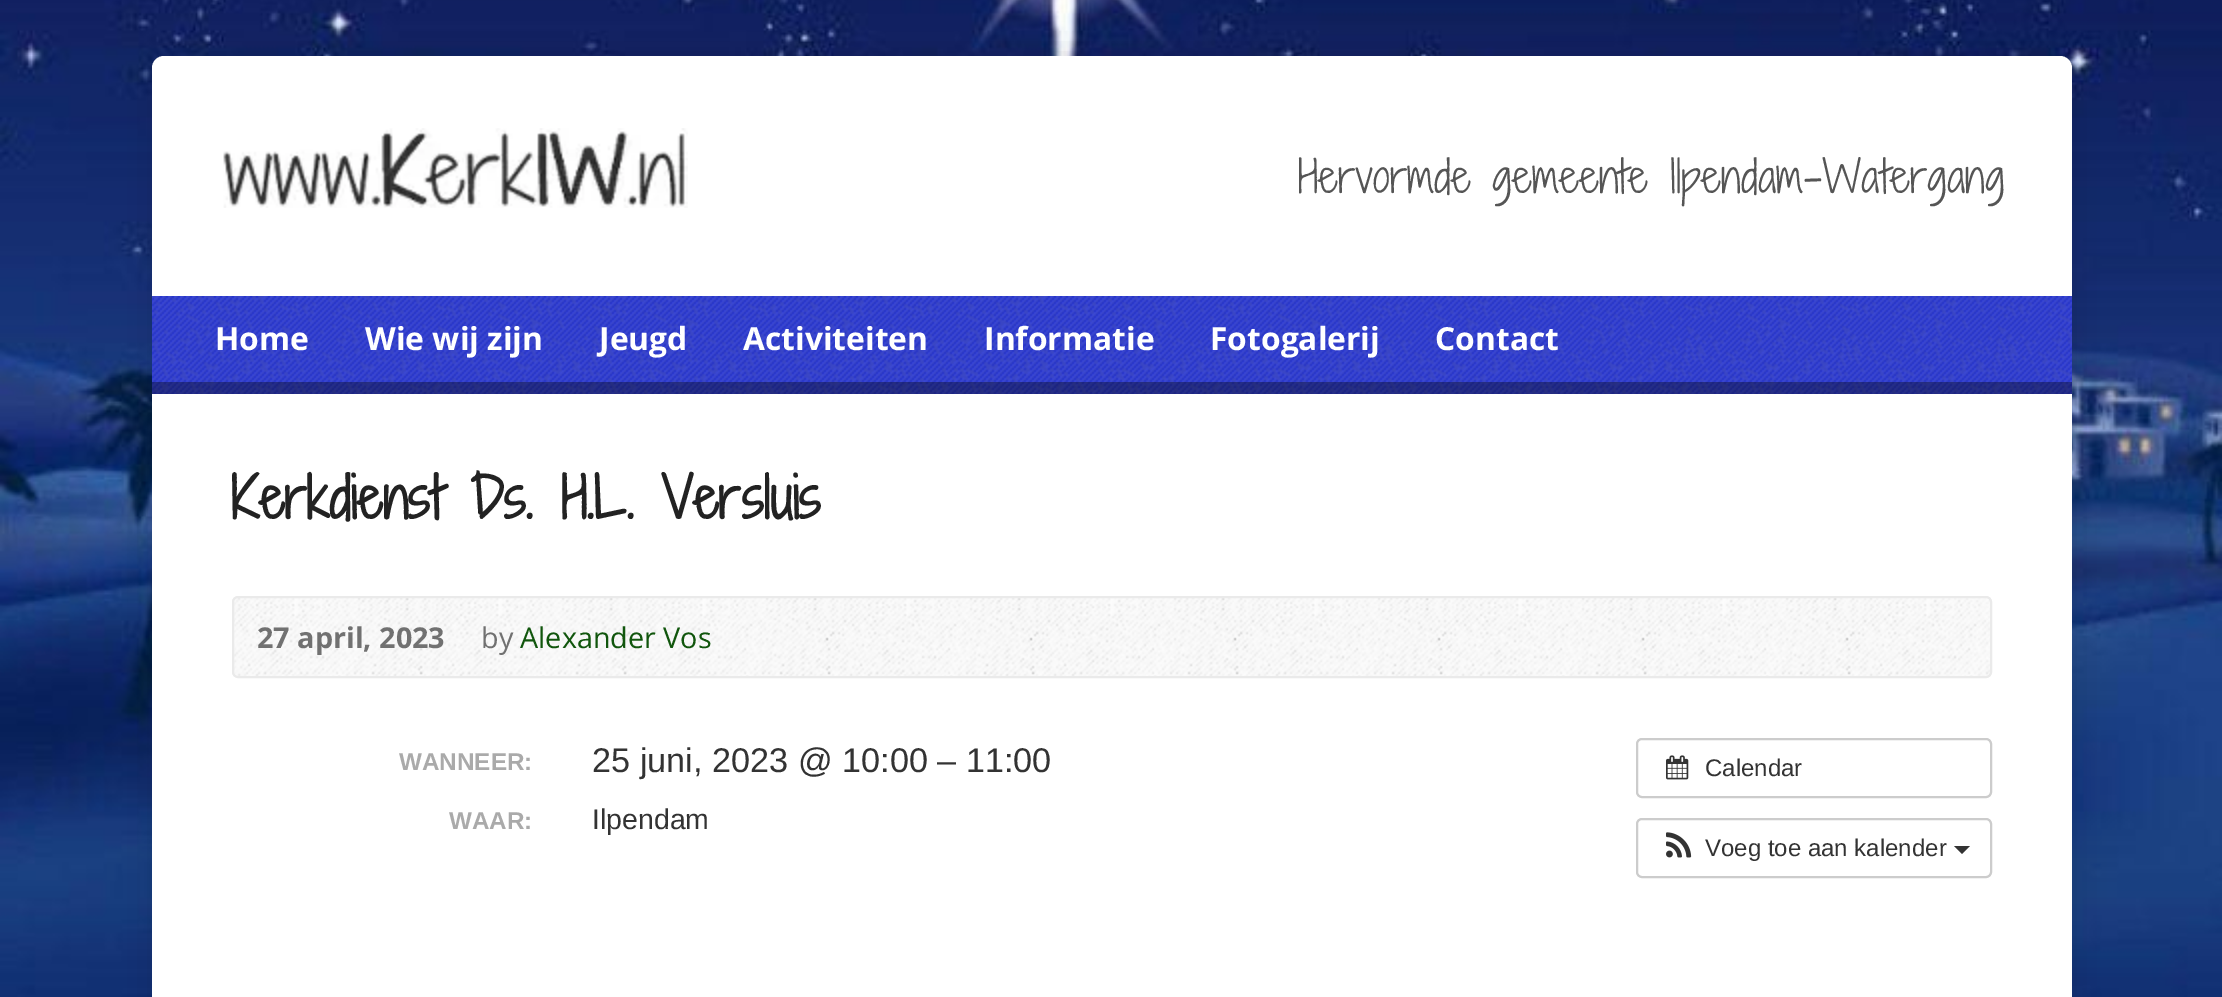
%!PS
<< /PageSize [2222 997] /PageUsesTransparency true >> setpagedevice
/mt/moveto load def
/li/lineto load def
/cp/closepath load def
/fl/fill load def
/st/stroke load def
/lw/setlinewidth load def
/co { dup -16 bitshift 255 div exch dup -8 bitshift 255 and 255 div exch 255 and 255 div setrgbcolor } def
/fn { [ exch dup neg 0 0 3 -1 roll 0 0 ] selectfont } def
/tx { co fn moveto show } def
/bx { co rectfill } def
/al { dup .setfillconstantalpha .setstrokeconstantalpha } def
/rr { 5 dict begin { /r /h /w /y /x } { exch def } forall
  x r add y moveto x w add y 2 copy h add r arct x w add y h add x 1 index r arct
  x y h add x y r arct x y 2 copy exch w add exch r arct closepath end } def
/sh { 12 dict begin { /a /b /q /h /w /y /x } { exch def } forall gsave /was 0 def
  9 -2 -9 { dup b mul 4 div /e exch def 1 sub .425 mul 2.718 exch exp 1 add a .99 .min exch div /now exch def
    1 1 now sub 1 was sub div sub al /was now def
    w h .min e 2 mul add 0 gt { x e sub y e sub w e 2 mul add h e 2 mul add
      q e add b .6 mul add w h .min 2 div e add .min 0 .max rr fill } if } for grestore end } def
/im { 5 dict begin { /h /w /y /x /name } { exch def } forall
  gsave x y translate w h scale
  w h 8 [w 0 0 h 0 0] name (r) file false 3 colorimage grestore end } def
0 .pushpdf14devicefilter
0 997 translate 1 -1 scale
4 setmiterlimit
0 0 2222 997 16#FFFFFF bx
(media/1.raw) 0 0 2222 997 im
16#000000 co
152 56 1920 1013 12 20 .12 sh
16#FFFFFF co
152 56 1920 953 12 rr fl
(media/2.raw) 223 128 465 80 im
152 296 1920 98 16#1E2EDB bx
(media/3.raw) 152 296 1920 98 im
0.35 al
152 382 1920 12 16#000000 bx
1 al
(media/4.raw) 232 596 1760 82 im
16#EAEAEA co
2 lw
233 597 1758 80 5 rr st
16#CCCCCC co
1637 739 354 58 5 rr st
(media/5.raw) 1666 755 23 25 im
1637 819 354 58 5 rr st
(media/6.raw) 1666 832 26 26 im
16#333333 co
1954 846 mt 1970 846 li 1962 854 li cp fl
(Hervormde gemeente Ilpendam-Watergang) 1298 193 /ShadowsIntoLightTwo-Light 43.25 16#555555 tx
(Home) 215 350 /OpenSans-Bold 31.75 16#FFFFFF tx
(Wie wij zijn) 365 350 /OpenSans-Bold 31.75 16#FFFFFF tx
(Jeugd) 599 350 /OpenSans-Bold 31.75 16#FFFFFF tx
(Activiteiten) 743 350 /OpenSans-Bold 31.75 16#FFFFFF tx
(Informatie) 984 350 /OpenSans-Bold 31.75 16#FFFFFF tx
(Fotogalerij) 1210 350 /OpenSans-Bold 31.75 16#FFFFFF tx
(Contact) 1435 350 /OpenSans-Bold 31.75 16#FFFFFF tx
(Kerkdienst Ds. H.L. Versluis) 231 519 /ShadowsIntoLightTwo-Bold 54.75 16#222222 tx
(27 april, 2023) 257 648 /OpenSans-Bold 28.75 16#717171 tx
(by) 481 648 /OpenSans-Regular 28.75 16#717171 tx
(Alexander Vos) 520 648 /OpenSans-Regular 28.75 16#11560D tx
(WANNEER:) 399 770 /LiberationSans-Bold 24.25 16#AAAAAA tx
(25 juni, 2023 @ 10:00 – 11:00) 592 772 /LiberationSans-Regular 34.25 16#333333 tx
(WAAR:) 449 829 /LiberationSans-Bold 24.25 16#AAAAAA tx
(Ilpendam) 592 829 /LiberationSans-Regular 28.5 16#333333 tx
(Calendar) 1705 776 /LiberationSans-Regular 24 16#333333 tx
(Voeg toe aan kalender) 1705 856 /LiberationSans-Regular 24 16#333333 tx
.poppdf14devicefilter showpage
